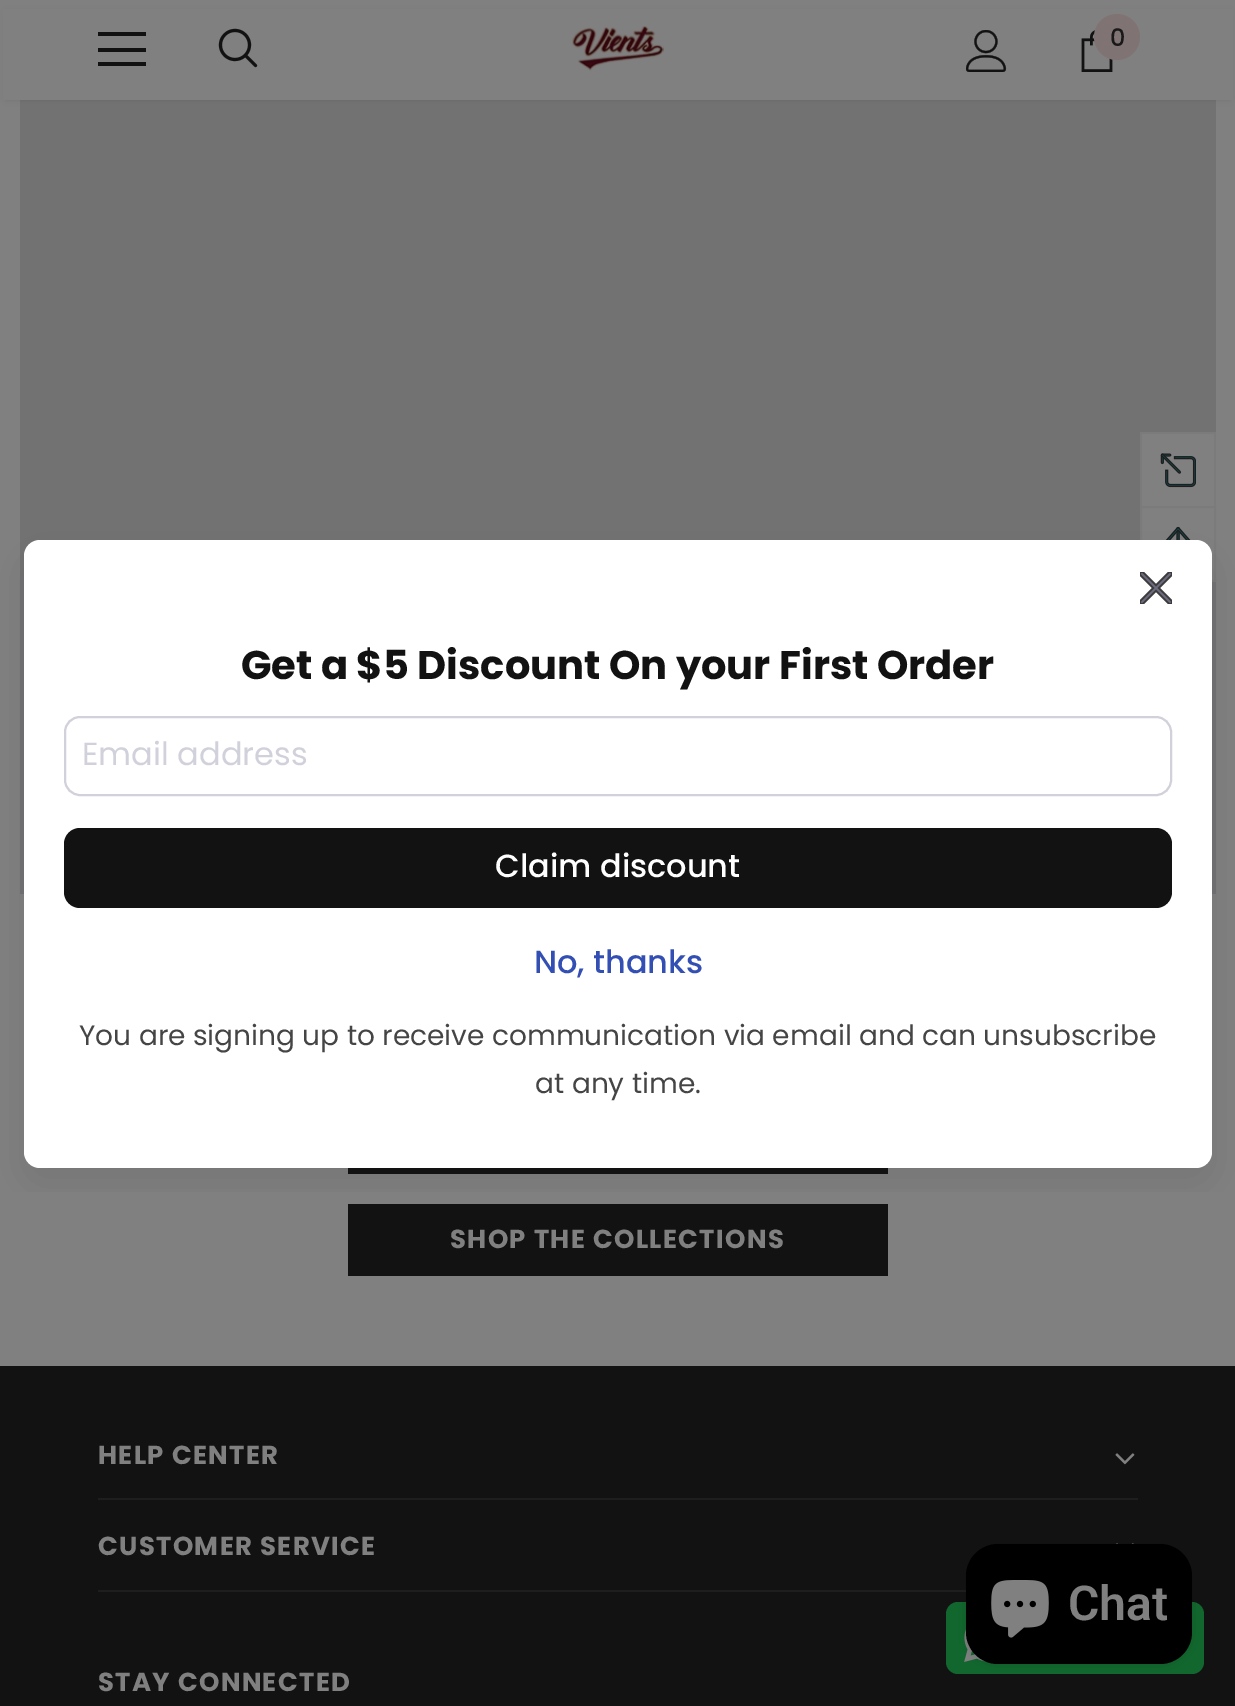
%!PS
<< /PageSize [1235 1706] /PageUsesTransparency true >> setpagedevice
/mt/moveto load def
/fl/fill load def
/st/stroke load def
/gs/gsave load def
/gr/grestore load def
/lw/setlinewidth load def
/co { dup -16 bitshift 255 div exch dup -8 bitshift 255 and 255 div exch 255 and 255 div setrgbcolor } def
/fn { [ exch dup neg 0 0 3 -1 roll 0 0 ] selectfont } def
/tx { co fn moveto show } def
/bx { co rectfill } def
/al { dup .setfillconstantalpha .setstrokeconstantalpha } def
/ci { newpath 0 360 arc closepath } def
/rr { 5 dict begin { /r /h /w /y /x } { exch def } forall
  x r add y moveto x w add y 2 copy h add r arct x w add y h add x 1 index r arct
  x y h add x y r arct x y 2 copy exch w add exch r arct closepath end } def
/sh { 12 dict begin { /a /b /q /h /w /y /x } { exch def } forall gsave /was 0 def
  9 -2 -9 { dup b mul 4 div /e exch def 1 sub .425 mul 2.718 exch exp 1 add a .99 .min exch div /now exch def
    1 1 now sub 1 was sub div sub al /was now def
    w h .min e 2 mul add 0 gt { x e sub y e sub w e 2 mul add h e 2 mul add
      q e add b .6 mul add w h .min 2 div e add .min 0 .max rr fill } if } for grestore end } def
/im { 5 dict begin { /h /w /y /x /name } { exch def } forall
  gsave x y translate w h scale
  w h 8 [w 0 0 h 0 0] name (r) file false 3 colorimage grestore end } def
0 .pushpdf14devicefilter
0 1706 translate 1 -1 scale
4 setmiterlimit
0 0 1235 1706 16#808080 bx
20 100 1196 794 16#727272 bx
16#000000 co
6 12 1224 88 0 3 .12 sh
3 9 1230 91 16#808080 bx
98 32 48 4 16#121212 bx
98 48 48 4 16#121212 bx
98 62 48 4 16#121212 bx
(media/1.raw) 218 28 40 40 im
(media/2.raw) 572 26 92 45 im
(media/3.raw) 966 30 41 42 im
(media/4.raw) 1081 30 32 42 im
16#807373 co
1117 37 23 ci fl
1142 434 72 146 16#808080 bx
1140 432 76 2 16#7B7B7B bx
1214 432 2 74 16#7B7B7B bx
1140 432 2 74 16#7B7B7B bx
(media/5.raw) 1160 453 36 35 im
2 lw
1141 507 74 74 rectstroke
(media/6.raw) 1165 526 26 14 im
348 1168 540 6 16#121212 bx
348 1204 540 72 16#121212 bx
gs
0 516 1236 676 rectclip
16#121127 co
24 556 1188 628 16 20 .1 sh
gr
16#FFFFFF co
24 540 1188 628 16 rr fl
(media/7.raw) 1140 572 32 32 im
16#D1D1DB co
65 717 1106 78 15 rr st
16#121212 co
64 828 1108 80 16 rr fl
0 1366 1235 340 16#121212 bx
98 1498 1040 2 16#1E1E1E bx
(media/8.raw) 1115 1453 20 12 im
98 1590 868 2 16#1E1E1E bx
(media/9.raw) 1116 1543 18 1 im
16#11672E co
946 1602 258 72 12 rr fl
(media/11.raw) 964 1629 23 33 im
16#000000 co
966 1544 226 120 32 5 .15 sh
966 1544 226 120 32 rr fl
(media/10.raw) 991 1580 58 58 im
(0) 1110 46 /Poppins-Medium 24 16#191919 tx
(Get a $5 Discount On your First Order) 241 679 /Poppins-Bold 40 16#121212 tx
(Email address) 82 765 /Poppins-Regular 32 16#D1D1DB tx
(Claim discount) 495 877 /Poppins-Medium 32 16#FFFFFF tx
(No, thanks) 534 973 /Poppins-Medium 32 16#334FB4 tx
(You are signing up to receive communication via email and can unsubscribe) 79 1045 /Poppins-Regular 28 16#454545 tx
(at any time.) 535 1093 /Poppins-Regular 28 16#454545 tx
/Poppins-Bold 26 fn
16#808080 co
450 1248 mt 1.3 0 (SHOP THE COLLECTIONS) ashow
98 1464 mt 1.3 0 (HELP CENTER) ashow
98 1555 mt 1.3 0 (CUSTOMER SERVICE) ashow
98 1691 mt 1.3 0 (STAY CONNECTED) ashow
(Chat) 1068 1620 /Roboto-SemiBold 48 16#808080 tx
.poppdf14devicefilter showpage
